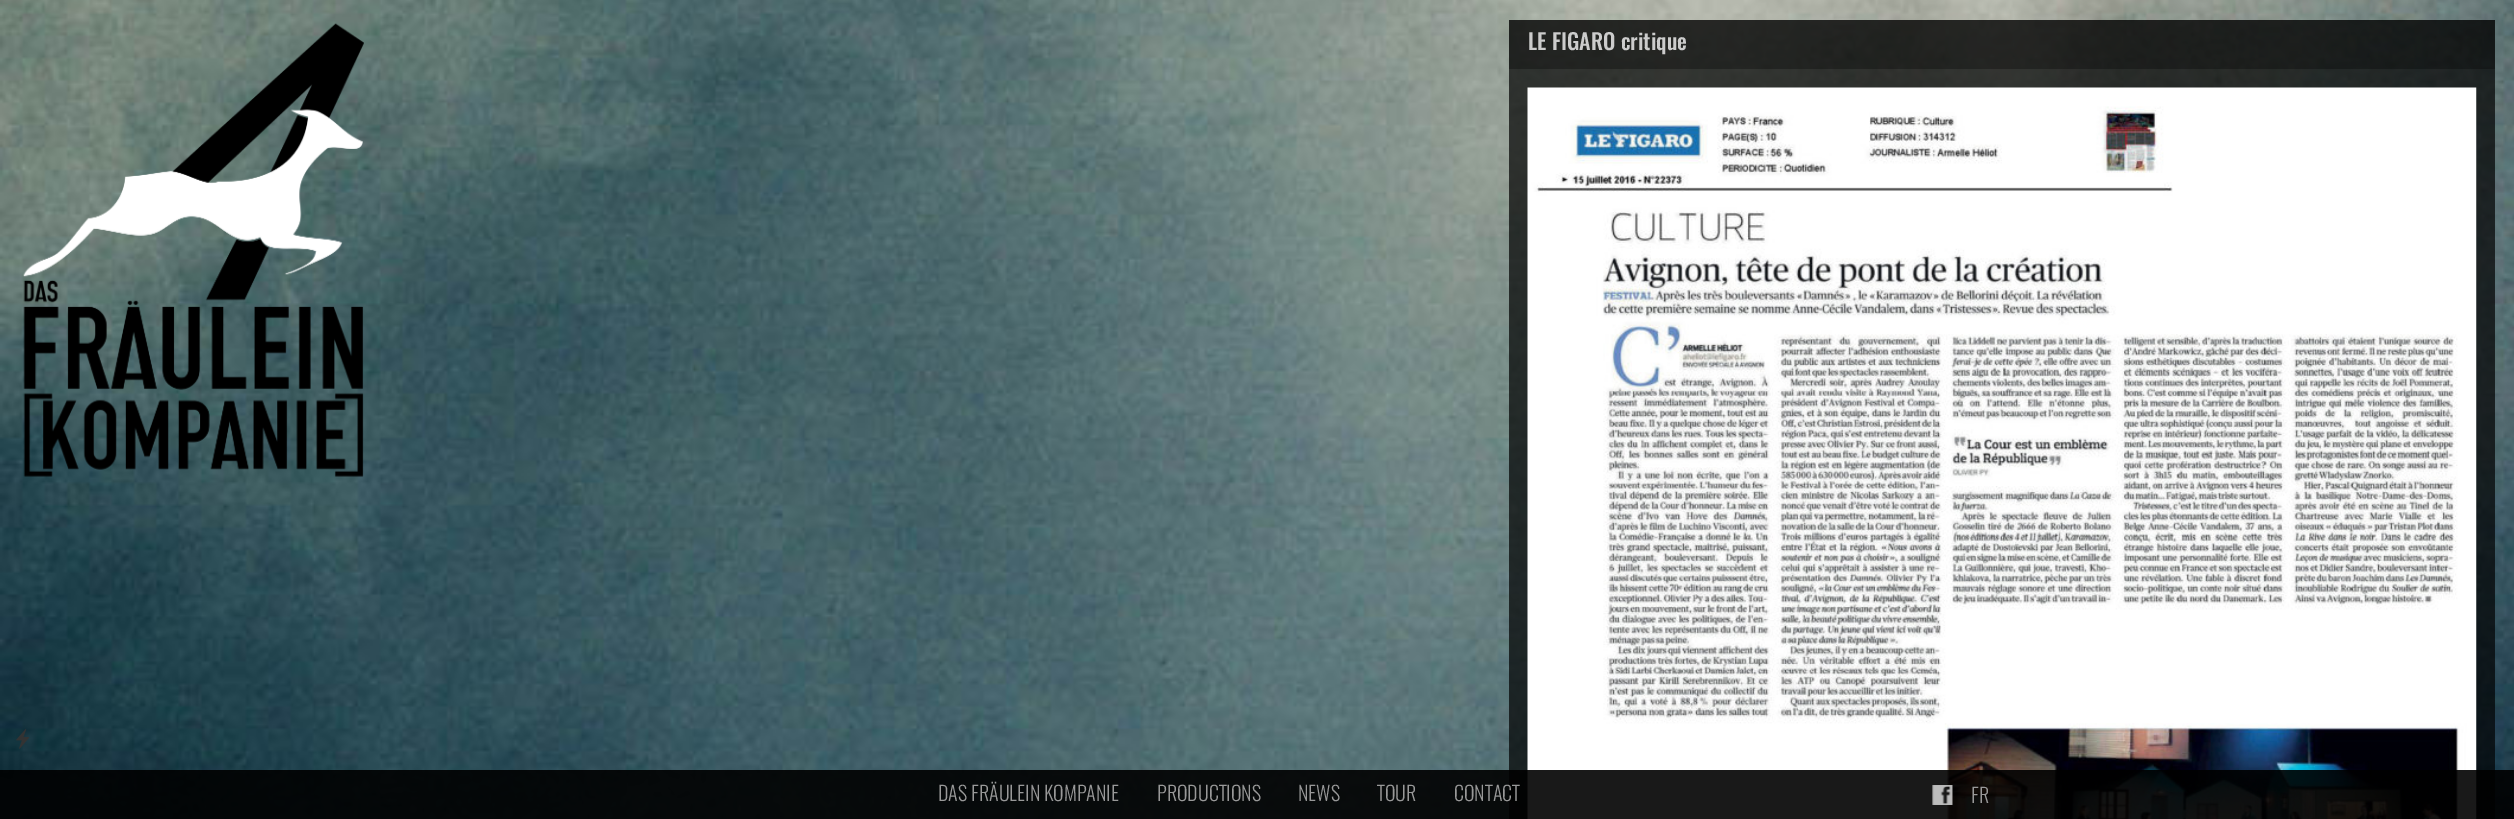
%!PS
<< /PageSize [2514 819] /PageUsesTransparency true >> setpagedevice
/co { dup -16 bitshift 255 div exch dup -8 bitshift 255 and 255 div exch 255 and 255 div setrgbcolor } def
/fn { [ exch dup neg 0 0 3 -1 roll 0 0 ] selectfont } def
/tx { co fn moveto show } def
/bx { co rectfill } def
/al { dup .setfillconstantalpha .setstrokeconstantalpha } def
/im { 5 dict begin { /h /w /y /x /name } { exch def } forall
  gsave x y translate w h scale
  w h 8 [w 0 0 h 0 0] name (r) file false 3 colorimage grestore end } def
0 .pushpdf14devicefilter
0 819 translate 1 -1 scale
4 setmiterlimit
0 0 2514 819 16#FFFFFF bx
(media/1.raw) 0 0 2514 819 im
(media/2.raw) 23 23 341 454 im
0.7 al
1509 20 986 799 16#000000 bx
0.3 al
1509 20 986 49 16#000000 bx
1 al
(media/3.raw) 1527 87 950 732 im
(media/4.raw) 16 729 13 20 im
0.9 al
0 770 2514 49 16#000000 bx
1 al
(media/5.raw) 1932 785 21 20 im
(LE FIGARO critique) 1528 50 /Oswald-Medium 22 16#CCCCCC tx
(DAS FRÄULEIN KOMPANIE) 938 801 /Oswald-Light 20 16#999999 tx
(PRODUCTIONS) 1157 801 /Oswald-Light 20 16#999999 tx
(NEWS) 1298 801 /Oswald-Light 20 16#999999 tx
(TOUR) 1377 801 /Oswald-Light 20 16#999999 tx
(CONTACT) 1454 801 /Oswald-Light 20 16#999999 tx
(FR) 1971 803 /Oswald-Light 20 16#999999 tx
.poppdf14devicefilter showpage
